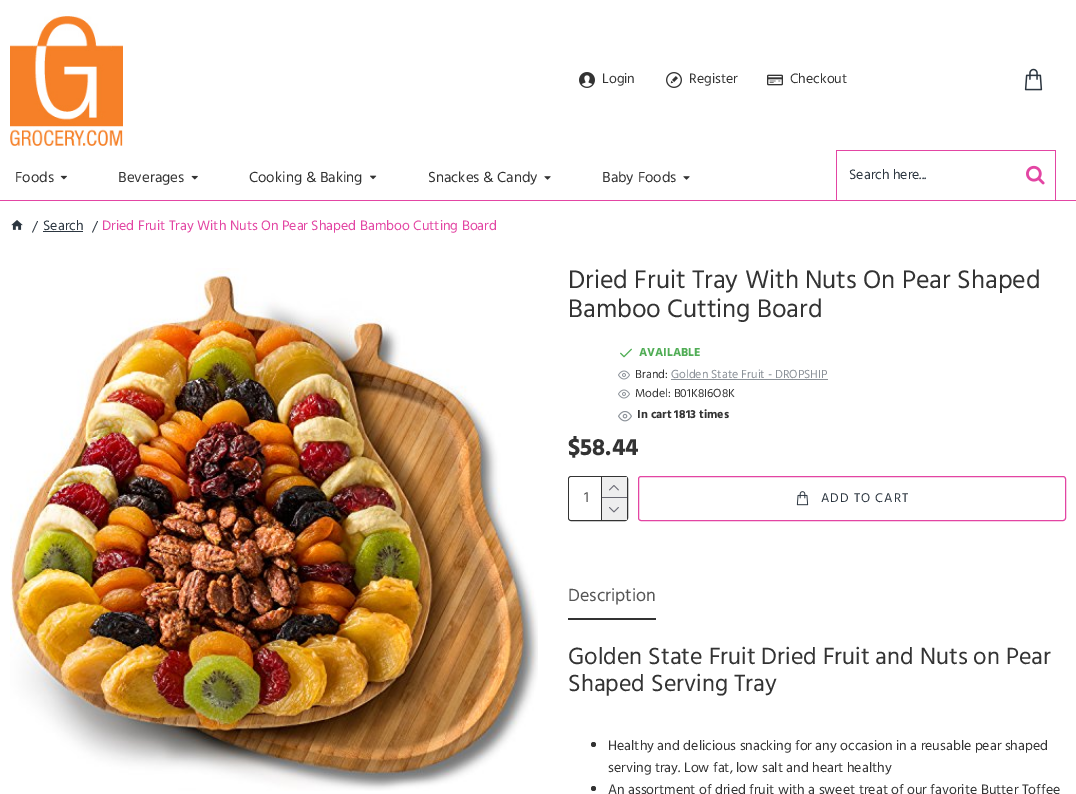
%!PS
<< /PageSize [1076 794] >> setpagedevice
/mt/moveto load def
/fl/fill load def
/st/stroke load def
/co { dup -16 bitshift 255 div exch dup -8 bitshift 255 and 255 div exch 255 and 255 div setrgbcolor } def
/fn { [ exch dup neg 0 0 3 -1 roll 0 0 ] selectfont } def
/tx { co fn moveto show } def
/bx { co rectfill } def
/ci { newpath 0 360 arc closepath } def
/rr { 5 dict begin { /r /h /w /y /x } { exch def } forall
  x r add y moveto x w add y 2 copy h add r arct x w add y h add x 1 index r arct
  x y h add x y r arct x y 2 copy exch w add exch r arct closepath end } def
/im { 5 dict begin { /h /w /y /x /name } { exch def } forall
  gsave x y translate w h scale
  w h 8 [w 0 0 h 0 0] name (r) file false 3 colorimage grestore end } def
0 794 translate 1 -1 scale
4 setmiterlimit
0 0 1076 794 16#FFFFFF bx
0 200 1076 1 16#E345A3 bx
(media/1.raw) 10 10 113 136 im
(media/2.raw) 579 72 16 16 im
(media/3.raw) 666 72 16 16 im
(media/4.raw) 767 74 16 12 im
(media/5.raw) 1024 68 19 23 im
(media/6.raw) 60 175 7 5 im
(media/7.raw) 191 175 7 5 im
(media/8.raw) 370 175 7 5 im
(media/9.raw) 544 176 7 4 im
(media/10.raw) 683 176 7 4 im
836 150 220 1 16#E345A3 bx
1055 150 1 50 16#E345A3 bx
836 150 1 50 16#E345A3 bx
(media/11.raw) 1026 165 19 20 im
(media/12.raw) 11 220 12 10 im
43 231 40 1 16#2C3640 bx
(media/13.raw) 10 268 528 523 im
(media/14.raw) 620 348 12 10 im
(media/15.raw) 618 370 12 10 im
671 379 157 1 16#8B9198 bx
(media/15.raw) 618 389 12 10 im
(media/16.raw) 618 411 14 11 im
16#333333 co
568.5 476.5 59 44 2.5 rr st
16#FFFFFF co
569 477 58 43 3 rr fl
601 477 1 43 16#333333 bx
602 477 25 20 16#EEEEEE bx
602 497 25 1 16#696973 bx
(media/17.raw) 609 485 10 6 im
602 498 25 22 16#EEEEEE bx
(media/18.raw) 609 507 10 6 im
16#E345A3 co
638.5 476.5 427 44 2.5 rr st
(media/19.raw) 796 491 13 15 im
568 618 88 2 16#333333 bx
593.5 744.5 2.5 ci fl
593.5 788.5 2.5 ci fl
(Login) 602 83 /Hind-Regular 14 16#333333 tx
(Register) 689 83 /Hind-Regular 14 16#333333 tx
(Checkout) 790 83 /Hind-Regular 14 16#333333 tx
(Foods) 15 182 /Hind-Regular 15 16#333333 tx
(Beverages) 118 182 /Hind-Regular 15 16#333333 tx
(Cooking & Baking) 249 182 /Hind-Regular 15 16#333333 tx
(Snackes & Candy) 428 182 /Hind-Regular 15 16#333333 tx
(Baby Foods) 602 182 /Hind-Regular 15 16#333333 tx
(Search here...) 849 179 /Hind-Regular 14 16#2C3640 tx
(/) 32 231 /Hind-Regular 14 16#2C3640 tx
(Search) 43 230 /Hind-Regular 14 16#2C3640 tx
(/) 92 231 /Hind-Regular 14 16#2C3640 tx
(Dried Fruit Tray With Nuts On Pear Shaped Bamboo Cutting Board) 102 230 /Hind-Regular 14 16#E345A3 tx
(Dried Fruit Tray With Nuts On Pear Shaped) 568 288 /Hind-Regular 26 16#333333 tx
(Bamboo Cutting Board) 568 317 /Hind-Regular 26 16#333333 tx
(AVAILABLE) 639 356 /Hind-Bold 12 16#50AD55 tx
(Brand:) 635 378 /Hind-Regular 12 16#333333 tx
(Golden State Fruit - DROPSHIP) 671 378 /Hind-Regular 12 16#8B9198 tx
(Model: B01K8I6O8K) 635 397 /Hind-Regular 12 16#333333 tx
(In cart 1813 times) 637 418 /Hind-Bold 12 16#333333 tx
($58.44) 568 455 /Hind-Bold 24 16#333333 tx
(1) 584 502 /Hind-Regular 15 16#555555 tx
/Hind-Regular 13 fn
16#2C3640 co
821 502 mt 1 0 (ADD TO CART) ashow
(Description) 568 601 /Hind-Regular 18 16#555555 tx
(Golden State Fruit Dried Fruit and Nuts on Pear) 568 664 /Hind-Regular 24 16#333333 tx
(Shaped Serving Tray) 568 691 /Hind-Regular 24 16#333333 tx
(Healthy and delicious snacking for any occasion in a reusable pear shaped) 608 750 /Hind-Regular 14 16#333333 tx
(serving tray. Low fat, low salt and heart healthy) 608 772 /Hind-Regular 14 16#333333 tx
(An assortment of dried fruit with a sweet treat of our favorite Butter Toffee) 608 794 /Hind-Regular 14 16#333333 tx
showpage
